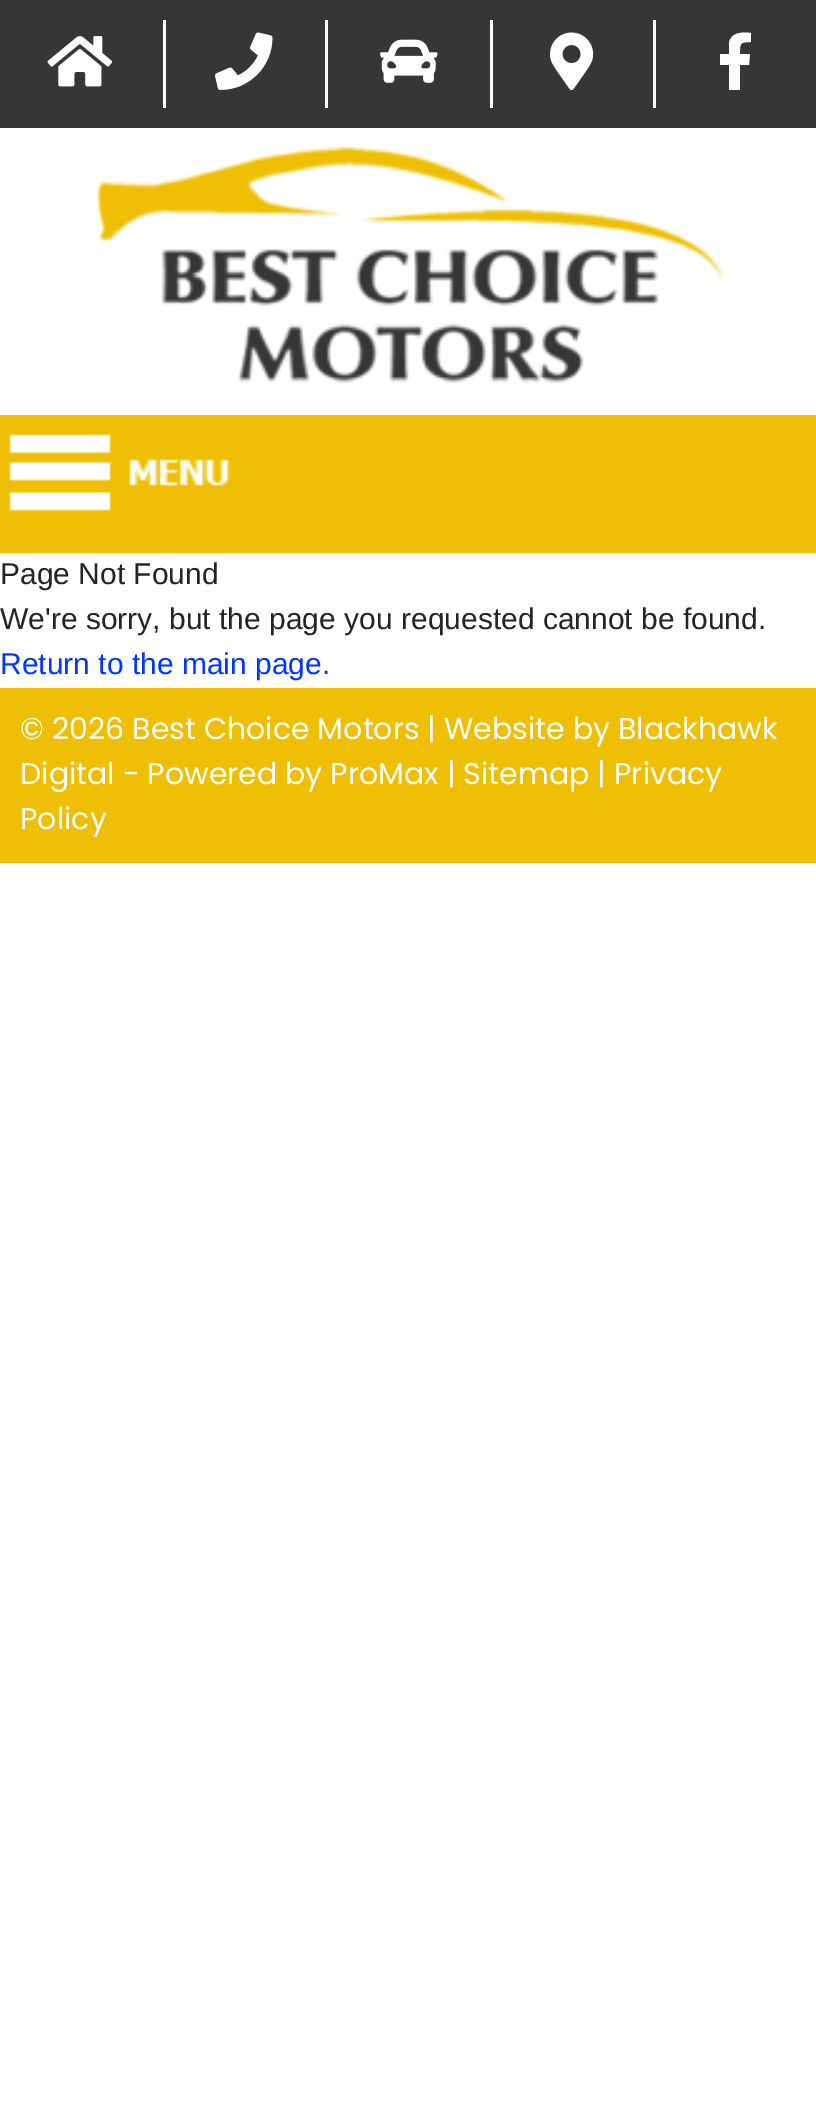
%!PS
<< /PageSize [816 2115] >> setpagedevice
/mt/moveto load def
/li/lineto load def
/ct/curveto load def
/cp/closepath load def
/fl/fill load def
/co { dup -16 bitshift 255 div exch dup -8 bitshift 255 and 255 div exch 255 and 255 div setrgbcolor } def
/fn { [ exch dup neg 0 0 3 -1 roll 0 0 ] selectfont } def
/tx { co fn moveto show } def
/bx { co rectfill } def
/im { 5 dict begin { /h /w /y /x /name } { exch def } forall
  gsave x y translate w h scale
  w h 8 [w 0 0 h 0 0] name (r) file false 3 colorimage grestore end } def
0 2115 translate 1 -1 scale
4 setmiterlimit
0 0 816 2115 16#FFFFFF bx
0 0 816 128 16#373535 bx
(media/1.raw) 47 36 66 51 im
163 20 3 88 16#FFFFFF bx
(media/2.raw) 215 32 58 58 im
490 20 3 88 16#FFFFFF bx
325 20 3 88 16#FFFFFF bx
(media/3.raw) 380 39 58 44 im
(media/4.raw) 550 32 44 58 im
653 20 3 88 16#FFFFFF bx
749 65 mt 750 54 li 740 54 li 740 44 739 42 751 42 ct 751 33 li 742 32 731 32 729 43 ct 729 54 li 720 54 li 720 65 li 729 65 li 729 90 li 740 90 li 740 65 li cp fl
(media/5.raw) 96 146 628 238 im
0 415 816 138 16#EEBF04 bx
(media/6.raw) 9 434 222 77 im
0 688 816 175 16#EEBF04 bx
(Page Not Found) 0 584 /LiberationSans-Regular 30 16#212529 tx
(We're sorry, but the page you requested cannot be found.) 0 629 /LiberationSans-Regular 30 16#212529 tx
(Return to the main page.) 0 674 /LiberationSans-Regular 30 16#0036FF tx
(© 2026 Best Choice Motors | Website by Blackhawk) 20 739 /Poppins-Regular 30 16#FFFFFF tx
(Digital - Powered by ProMax | Sitemap | Privacy) 20 784 /Poppins-Regular 30 16#FFFFFF tx
(Policy) 20 829 /Poppins-Regular 30 16#FFFFFF tx
showpage
